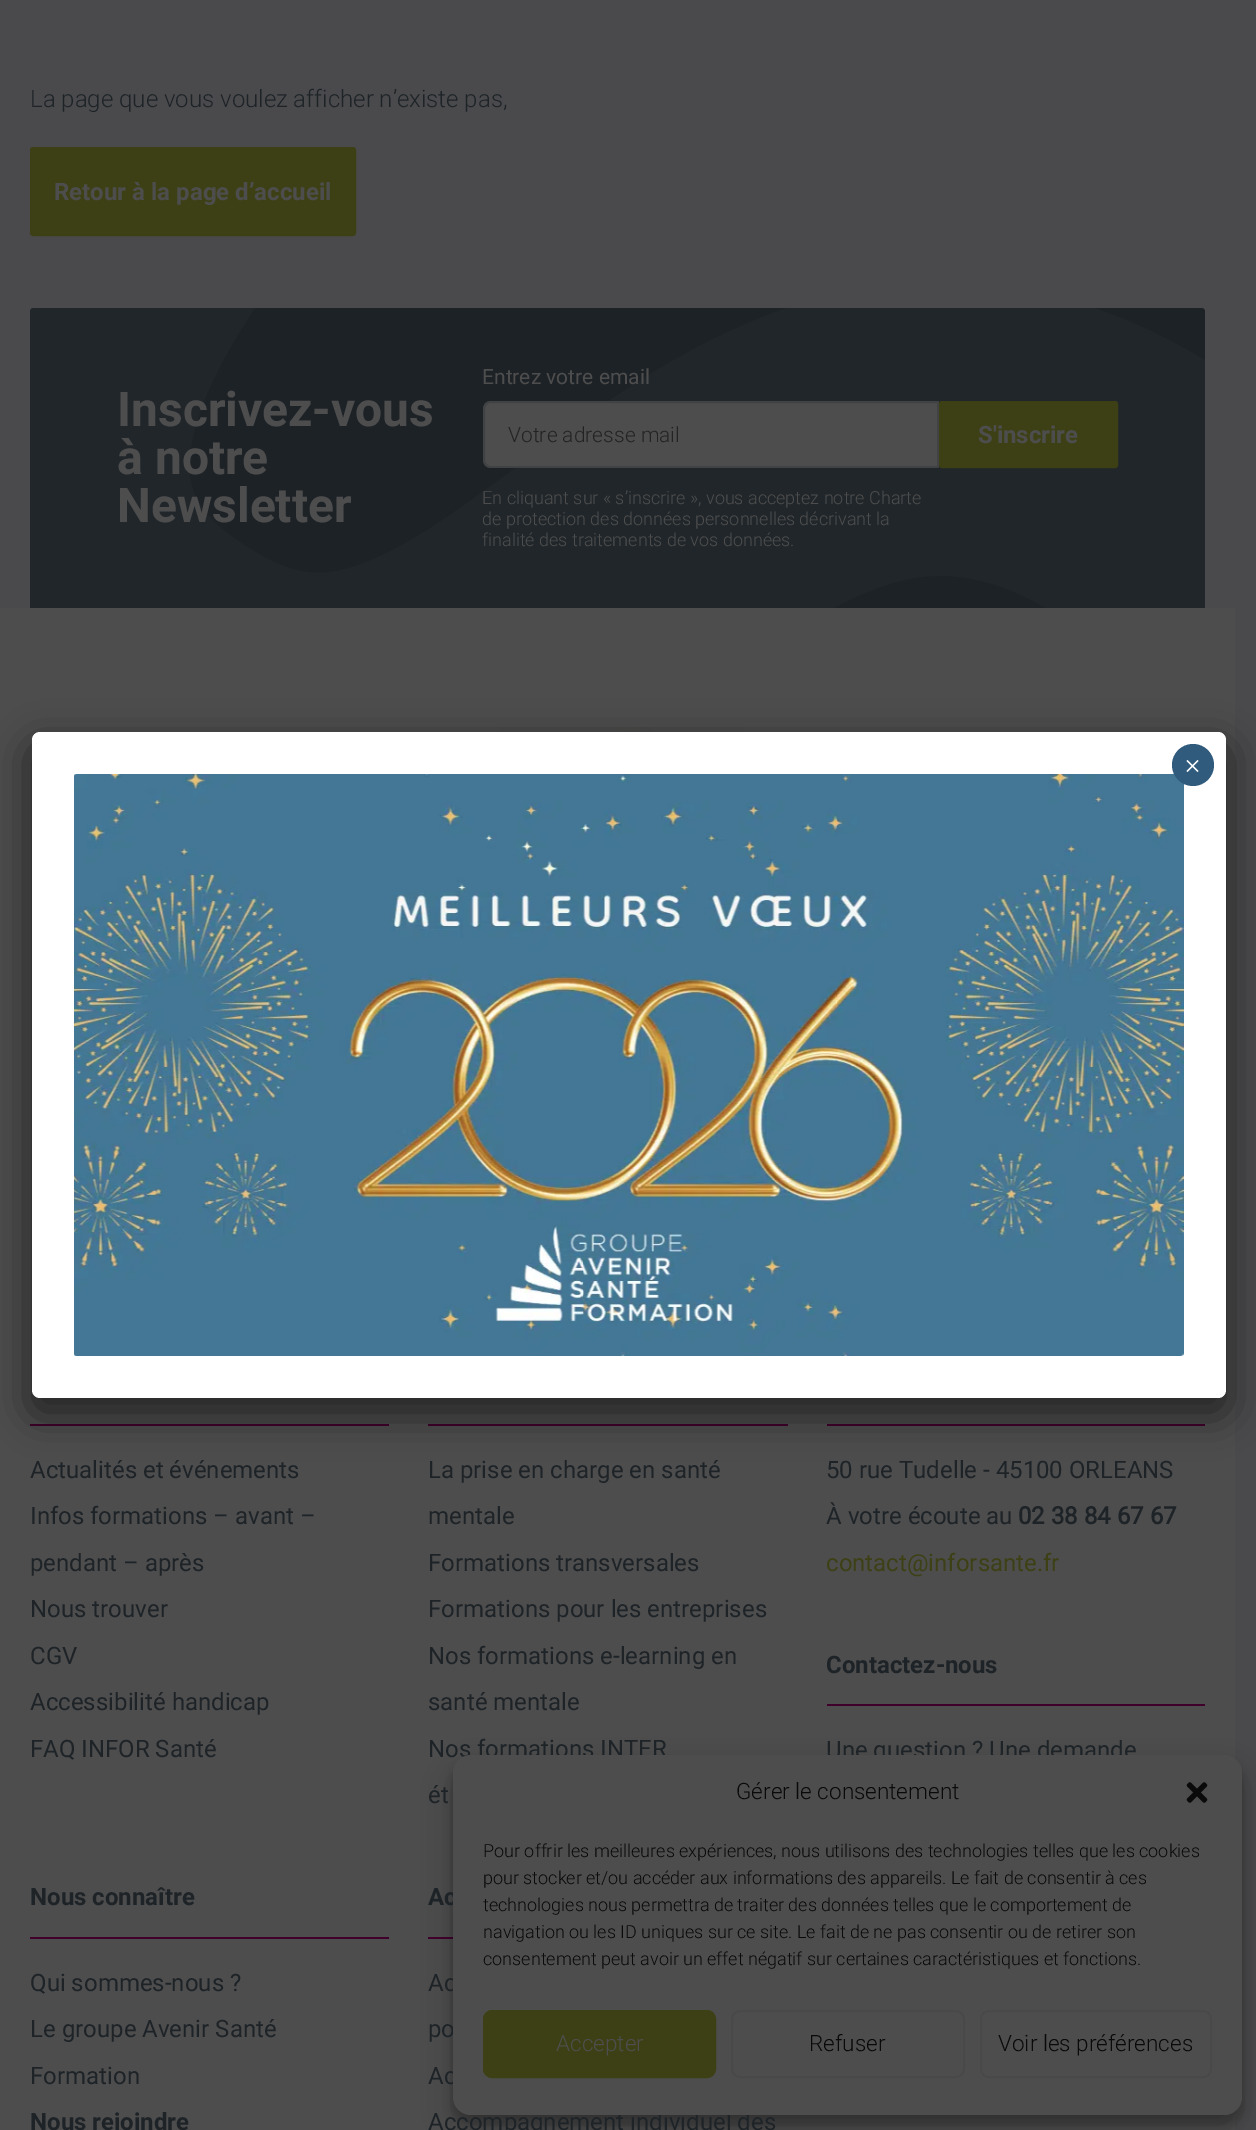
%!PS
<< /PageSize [1256 2130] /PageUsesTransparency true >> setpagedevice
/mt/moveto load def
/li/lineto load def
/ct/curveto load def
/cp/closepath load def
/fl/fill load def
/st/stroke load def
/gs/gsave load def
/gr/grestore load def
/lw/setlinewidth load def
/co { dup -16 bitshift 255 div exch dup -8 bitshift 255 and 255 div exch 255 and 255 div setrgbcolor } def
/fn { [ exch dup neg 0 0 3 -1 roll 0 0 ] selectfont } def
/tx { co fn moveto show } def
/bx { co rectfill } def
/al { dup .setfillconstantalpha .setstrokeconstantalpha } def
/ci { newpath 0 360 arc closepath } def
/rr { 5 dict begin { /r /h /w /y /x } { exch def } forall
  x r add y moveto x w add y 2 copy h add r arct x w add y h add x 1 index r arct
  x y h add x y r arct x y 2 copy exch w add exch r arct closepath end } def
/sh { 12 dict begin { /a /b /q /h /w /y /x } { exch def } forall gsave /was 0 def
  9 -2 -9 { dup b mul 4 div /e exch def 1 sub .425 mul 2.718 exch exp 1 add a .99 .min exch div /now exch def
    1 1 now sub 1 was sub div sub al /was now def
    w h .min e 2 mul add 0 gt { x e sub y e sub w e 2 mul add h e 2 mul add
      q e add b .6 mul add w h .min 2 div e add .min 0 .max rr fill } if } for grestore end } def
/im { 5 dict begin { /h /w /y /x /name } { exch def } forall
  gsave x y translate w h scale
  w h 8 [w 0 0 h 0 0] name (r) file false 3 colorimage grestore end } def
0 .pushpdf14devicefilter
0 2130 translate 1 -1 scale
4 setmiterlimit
0 0 1256 2130 16#4A4A4C bx
16#3D4014 co
31.5 148.5 323 86 1.5 rr gs fl gr
3 lw
st
16#1D2327 co
33 308 mt 1202 308 li 1203.5 308 1205 309.5 1205 311 ct 1205 608 li 30 608 li 30 311 li 30 309.5 31.5 308 33 308 ct cp fl
(media/1.raw) 30 308 1175 300 im
16#4D4D4D co
491 401 mt 939 401 li 939 468 li 491 468 li 486.5 468 483 464.5 483 460 ct 483 409 li 483 404.5 486.5 401 491 401 ct cp fl
0.2 al
16#0E1821 co
2 lw
491 402 mt 938 402 li 938 467 li 491 467 li 487 467 484 464 484 460 ct 484 409 li 484 405 487 402 491 402 ct cp st
1 al
16#3D4014 co
940.5 402.5 176 64 1.5 rr gs fl gr
3 lw
st
0 608 1235 1522 16#4D4D4D bx
(media/2.raw) 498 727 247 5 im
30 1424 359 2 16#40002C bx
428 1424 360 2 16#40002C bx
30 1937 359 2 16#40002C bx
428 1937 25 2 16#40002C bx
827 1424 378 2 16#40002C bx
827 1704 378 2 16#40002C bx
16#020202 co
26 741 1206 678 14 19 .5 sh
16#FFFFFF co
32 732 1194 666 8 rr fl
(media/3.raw) 74 774 1110 582 im
16#315B7C co
1193 765 21 ci fl
16#000000 co
453 1764 789 360 18 4.5 .23 sh
453 1770 789 360 18 15 .19 sh
(La page que vous voulez afficher n’existe pas,) 30 107 /Roboto-Light 24 16#1D2327 tx
(Retour à la page d’accueil) 54 200 /Roboto-Bold 24 16#4D4D4D tx
(Inscrivez-vous) 117 426 /Roboto-Bold 48 16#4D4D4D tx
(à notre) 117 474 /Roboto-Bold 48 16#4D4D4D tx
(Newsletter) 117 522 /Roboto-Bold 48 16#4D4D4D tx
(Entrez votre email) 482 384 /Roboto-Regular 21 16#4D4D4D tx
(Votre adresse mail) 508 442 /Roboto-Light 21 16#232323 tx
(En cliquant sur « s’inscrire », vous acceptez notre Charte) 482 504 /Roboto-Light 18 16#4D4D4D tx
(de protection des données personnelles décrivant la) 482 525 /Roboto-Light 18 16#4D4D4D tx
(finalité des traitements de vos données.) 482 546 /Roboto-Light 18 16#4D4D4D tx
(S'inscrire) 978 443 /Roboto-Bold 24 16#4D4D4D tx
(Actualités et événements) 30 1478 /Roboto-Regular 24 16#1D2327 tx
(Infos formations – avant –) 30 1524 /Roboto-Regular 24 16#1D2327 tx
(pendant – après) 30 1571 /Roboto-Regular 24 16#1D2327 tx
(Nous trouver) 30 1617 /Roboto-Regular 24 16#1D2327 tx
(CGV) 30 1664 /Roboto-Regular 24 16#1D2327 tx
(Accessibilité handicap) 30 1710 /Roboto-Regular 24 16#1D2327 tx
(FAQ INFOR Santé) 30 1757 /Roboto-Regular 24 16#1D2327 tx
(La prise en charge en santé) 428 1478 /Roboto-Regular 24 16#1D2327 tx
(mentale) 428 1524 /Roboto-Regular 24 16#1D2327 tx
(Formations transversales) 428 1571 /Roboto-Regular 24 16#1D2327 tx
(Formations pour les entreprises) 428 1617 /Roboto-Regular 24 16#1D2327 tx
(Nos formations e-learning en) 428 1664 /Roboto-Regular 24 16#1D2327 tx
(santé mentale) 428 1710 /Roboto-Regular 24 16#1D2327 tx
(Nos formations INTER) 428 1757 /Roboto-Regular 24 16#1D2327 tx
(ét) 428 1803 /Roboto-Regular 24 16#1D2327 tx
(Nous connaître) 30 1905 /Roboto-Bold 24 16#1D2327 tx
(Qui sommes-nous ?) 30 1991 /Roboto-Regular 24 16#1D2327 tx
(Le groupe Avenir Santé) 30 2037 /Roboto-Regular 24 16#1D2327 tx
(Formation) 30 2084 /Roboto-Regular 24 16#1D2327 tx
(Nous rejoindre) 30 2130 /Roboto-Bold 24 16#1D2327 tx
(Ac) 428 1905 /Roboto-Bold 24 16#1D2327 tx
(Ac) 428 1991 /Roboto-Regular 24 16#1D2327 tx
(po) 428 2037 /Roboto-Regular 24 16#1D2327 tx
(Ac) 428 2084 /Roboto-Regular 24 16#1D2327 tx
(Accompagnement individuel des) 428 2130 /Roboto-Regular 24 16#1D2327 tx
(50 rue Tudelle - 45100 ORLEANS) 826 1478 /Roboto-Regular 24 16#1D2327 tx
(À votre écoute au) 826 1524 /Roboto-Regular 24 16#1D2327 tx
(02 38 84 67 67) 1018 1524 /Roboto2-Bold 24 16#1D2327 tx
(contact@inforsante.fr) 826 1571 /Roboto-Regular 24 16#3D4014 tx
(Contactez-nous) 826 1673 /Roboto-Bold 24 16#1D2327 tx
(Une question ? Une demande) 826 1758 /Roboto-Regular 24 16#1D2327 tx
(×) 1184 776 /LiberationSerif-Regular 30 16#FFFFFF tx
16#4D4D4D co
453 1755 789 360 18 rr fl
(Gérer le consentement) 736 1799 /Roboto-Light 22.5 16#0A0A0A tx
(media/4.raw) 1186 1782 22 21 im
(Pour offrir les meilleures expériences, nous utilisons des technologies telles que les cookies) 483 1857 /Roboto-Light 18 16#0A0A0A tx
(pour stocker et/ou accéder aux informations des appareils. Le fait de consentir à ces) 483 1884 /Roboto-Light 18 16#0A0A0A tx
(technologies nous permettra de traiter des données telles que le comportement de) 483 1911 /Roboto-Light 18 16#0A0A0A tx
(navigation ou les ID uniques sur ce site. Le fait de ne pas consentir ou de retirer son) 483 1938 /Roboto-Light 18 16#0A0A0A tx
(consentement peut avoir un effet négatif sur certaines caractéristiques et fonctions.) 483 1965 /Roboto-Light 18 16#0A0A0A tx
16#3D4014 co
484 2011 231 66 8 rr gs fl gr
2 lw
st
(Accepter) 556 2051 /Roboto-Light 22.5 16#4D4D4D tx
16#494949 co
732 2011 232 66 8 rr st
(Refuser) 809 2051 /Roboto-Light 22.5 16#0A0A0A tx
16#494949 co
981 2011 230 66 8 rr st
(Voir les préférences) 998 2051 /Roboto-Light 22.5 16#0A0A0A tx
.poppdf14devicefilter showpage
